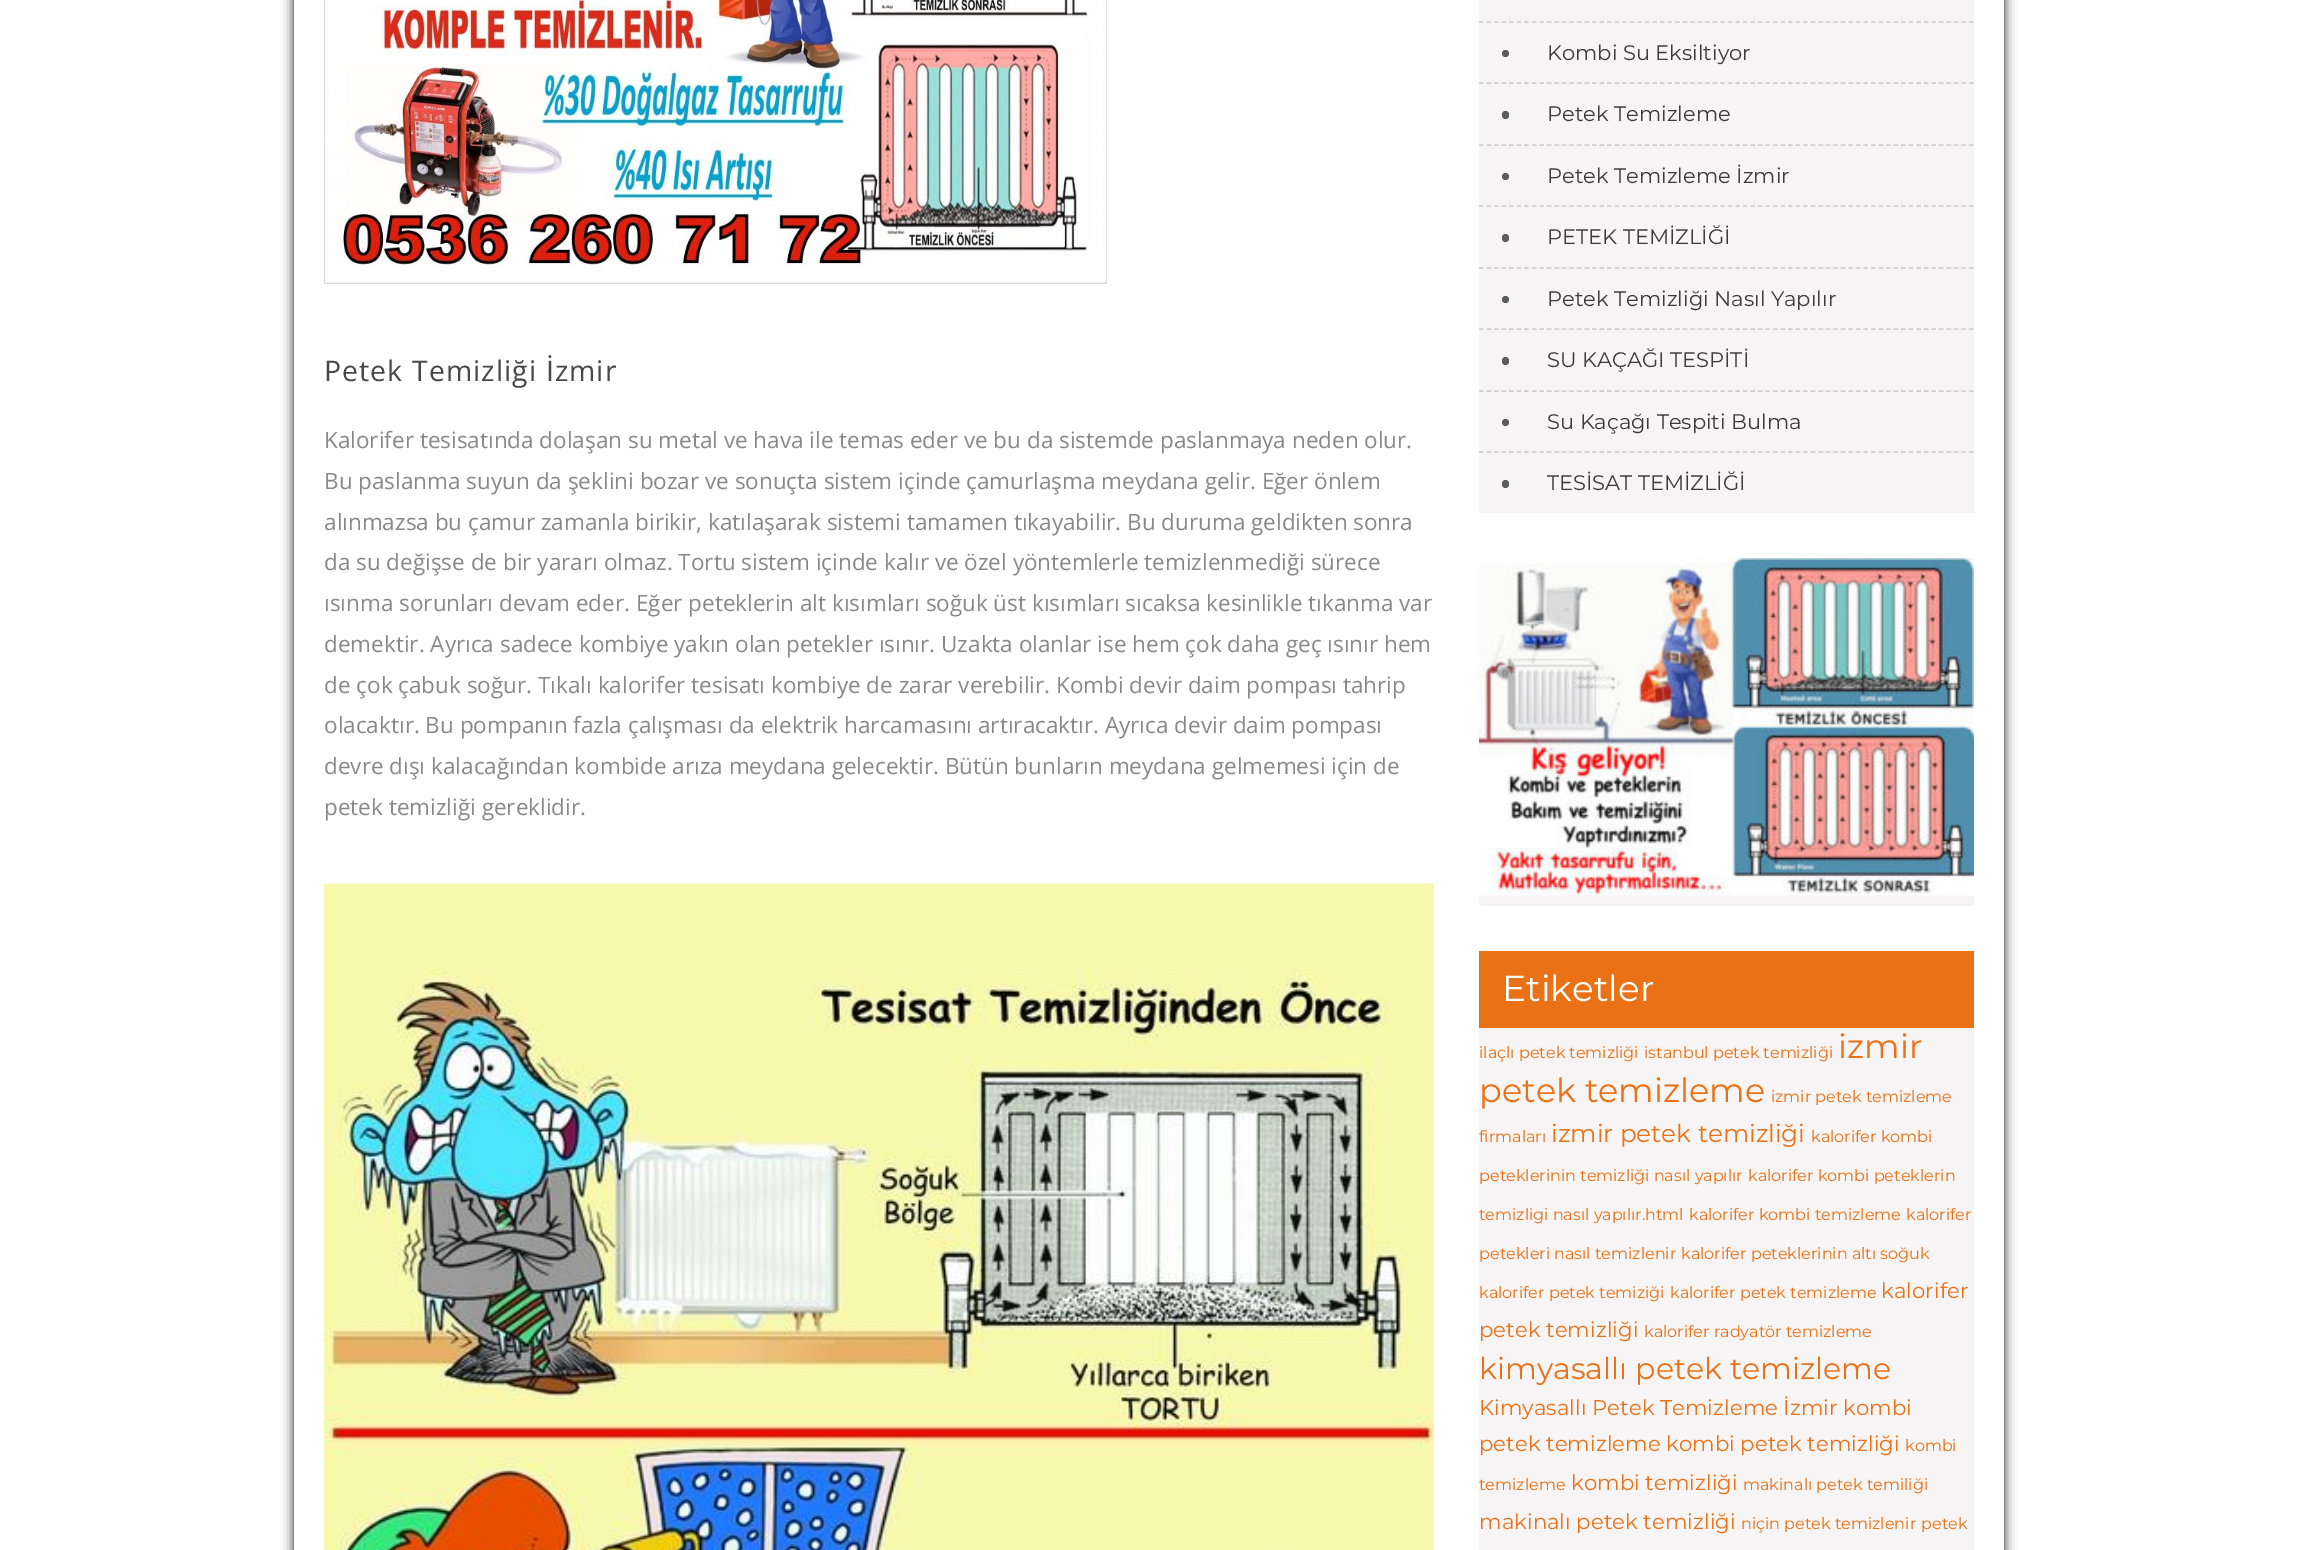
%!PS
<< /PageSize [2297 1550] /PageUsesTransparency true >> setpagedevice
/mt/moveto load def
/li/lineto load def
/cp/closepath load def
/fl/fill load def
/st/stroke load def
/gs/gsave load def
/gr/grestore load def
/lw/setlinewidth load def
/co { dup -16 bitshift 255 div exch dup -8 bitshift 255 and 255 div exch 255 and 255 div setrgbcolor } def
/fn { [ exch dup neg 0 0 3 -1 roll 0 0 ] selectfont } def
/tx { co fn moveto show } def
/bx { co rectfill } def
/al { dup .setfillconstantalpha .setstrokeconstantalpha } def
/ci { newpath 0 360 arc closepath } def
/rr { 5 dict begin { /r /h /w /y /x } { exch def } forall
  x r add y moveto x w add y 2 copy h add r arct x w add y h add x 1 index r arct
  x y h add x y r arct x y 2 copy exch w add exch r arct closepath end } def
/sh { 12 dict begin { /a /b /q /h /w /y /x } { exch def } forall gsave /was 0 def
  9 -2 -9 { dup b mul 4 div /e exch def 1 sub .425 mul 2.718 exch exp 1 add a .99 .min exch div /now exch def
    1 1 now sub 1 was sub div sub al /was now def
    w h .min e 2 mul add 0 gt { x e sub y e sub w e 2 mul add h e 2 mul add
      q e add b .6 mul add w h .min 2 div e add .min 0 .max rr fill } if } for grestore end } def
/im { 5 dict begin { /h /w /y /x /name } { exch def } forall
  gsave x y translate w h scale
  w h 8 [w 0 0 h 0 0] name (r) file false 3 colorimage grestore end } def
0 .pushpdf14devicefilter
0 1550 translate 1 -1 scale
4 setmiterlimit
0 0 2297 1550 16#FFFFFF bx
gs
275 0 mt 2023 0 li 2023 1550 li 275 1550 li cp 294 -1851 mt 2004 -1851 li 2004 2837 li 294 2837 li cp eoclip newpath
16#111111 co
294 -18 1710 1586 0 6 1 sh
gr
(media/1.raw) 324 0 783 284 im
(media/2.raw) 324 883 1110 667 im
1479 0 495 513 16#F6F4F4 bx
16#D0CFCF co
1.5 lw
[4.5 3.04] 0 setdash
1479 22 mt 1974 22 li st
1479 83 mt 1974 83 li st
16#5C5C5C co
1505.5 53.5 3.5 ci fl
16#D0CFCF co
1479 145 mt 1974 145 li st
16#5C5C5C co
1502 111 7 8 3.5 rr fl
16#D0CFCF co
1479 206 mt 1974 206 li st
16#5C5C5C co
1505.5 176.5 3.5 ci fl
16#D0CFCF co
1479 268 mt 1974 268 li st
16#5C5C5C co
1502 234 7 8 3.5 rr fl
16#D0CFCF co
1479 329 mt 1974 329 li st
16#5C5C5C co
1505.5 299.5 3.5 ci fl
16#D0CFCF co
1479 391 mt 1974 391 li st
16#5C5C5C co
1502 357 7 8 3.5 rr fl
16#D0CFCF co
1479 452 mt 1974 452 li st
16#5C5C5C co
1505.5 422.5 3.5 ci fl
1502 480 7 8 3.5 rr fl
1479 895 495 11 16#F6F4F4 bx
(media/3.raw) 1479 558 495 338 im
1479 1028 495 522 16#F6F4F4 bx
1479 951 495 77 16#EA7115 bx
/OpenSans-Regular 28.4 fn
16#474747 co
324 381 mt 1.1 0 (Petek Temizliği İzmir) ashow
(Kalorifer tesisatında dolaşan su metal ve hava ile temas eder ve bu da sistemde paslanmaya neden olur.) 324 448 /OpenSans-Regular 22.5 16#888888 tx
(Bu paslanma suyun da şeklini bozar ve sonuçta sistem içinde çamurlaşma meydana gelir. Eğer önlem) 324 489 /OpenSans-Regular 22.5 16#888888 tx
(alınmazsa bu çamur zamanla birikir, katılaşarak sistemi tamamen tıkayabilir. Bu duruma geldikten sonra) 324 530 /OpenSans-Regular 22.5 16#888888 tx
(da su değişse de bir yararı olmaz. Tortu sistem içinde kalır ve özel yöntemlerle temizlenmediği sürece) 324 570 /OpenSans-Regular 22.5 16#888888 tx
(ısınma sorunları devam eder. Eğer peteklerin alt kısımları soğuk üst kısımları sıcaksa kesinlikle tıkanma var) 324 611 /OpenSans-Regular 22.5 16#888888 tx
(demektir. Ayrıca sadece kombiye yakın olan petekler ısınır. Uzakta olanlar ise hem çok daha geç ısınır hem) 324 652 /OpenSans-Regular 22.5 16#888888 tx
(de çok çabuk soğur. Tıkalı kalorifer tesisatı kombiye de zarar verebilir. Kombi devir daim pompası tahrip) 324 693 /OpenSans-Regular 22.5 16#888888 tx
(olacaktır. Bu pompanın fazla çalışması da elektrik harcamasını artıracaktır. Ayrıca devir daim pompası) 324 733 /OpenSans-Regular 22.5 16#888888 tx
(devre dışı kalacağından kombide arıza meydana gelecektir. Bütün bunların meydana gelmemesi için de) 324 774 /OpenSans-Regular 22.5 16#888888 tx
(petek temizliği gereklidir.) 324 815 /OpenSans-Regular 22.5 16#888888 tx
(Kombi Su Eksiltiyor) 1547 60 /Montserrat-Regular 21 16#3B3B3B tx
(Petek Temizleme) 1547 121 /Montserrat-Regular 21 16#3B3B3B tx
(Petek Temizleme İzmir) 1547 183 /Montserrat-Regular 21 16#3B3B3B tx
(PETEK TEMİZLİĞİ) 1547 244 /Montserrat-Regular 21 16#3B3B3B tx
(Petek Temizliği Nasıl Yapılır) 1547 306 /Montserrat-Regular 21 16#3B3B3B tx
(SU KAÇAĞI TESPİTİ) 1547 367 /Montserrat-Regular 21 16#3B3B3B tx
(Su Kaçağı Tespiti Bulma) 1547 429 /Montserrat-Regular 21 16#3B3B3B tx
(TESİSAT TEMİZLİĞİ) 1547 490 /Montserrat-Regular 21 16#3B3B3B tx
(Etiketler) 1502 1001 /Montserrat-Regular 36 16#FFFFFF tx
(ilaçlı petek temizliği) 1479 1058 /Montserrat-Regular 16 16#EA7115 tx
(istanbul petek temizliği) 1644 1058 /Montserrat-Regular 16 16#EA7115 tx
(izmir) 1838 1058 /Montserrat-Regular 33.5 16#EA7115 tx
(petek temizleme) 1479 1102 /Montserrat-Regular 33.5 16#EA7115 tx
(izmir petek temizleme) 1771 1102 /Montserrat-Regular 16 16#EA7115 tx
(firmaları) 1479 1142 /Montserrat-Regular 16 16#EA7115 tx
(izmir petek temizliği) 1551 1142 /Montserrat-Regular 24.75 16#EA7115 tx
(kalorifer kombi) 1811 1142 /Montserrat-Regular 16 16#EA7115 tx
(peteklerinin temizliği nasıl yapılır) 1479 1181 /Montserrat-Regular 16 16#EA7115 tx
(kalorifer kombi peteklerin) 1748 1181 /Montserrat-Regular 16 16#EA7115 tx
(temizligi nasıl yapılır.html) 1479 1220 /Montserrat-Regular 16 16#EA7115 tx
(kalorifer kombi temizleme) 1689 1220 /Montserrat-Regular 16 16#EA7115 tx
(kalorifer) 1906 1220 /Montserrat-Regular 16 16#EA7115 tx
(petekleri nasıl temizlenir) 1479 1259 /Montserrat-Regular 16 16#EA7115 tx
(kalorifer peteklerinin altı soğuk) 1681 1259 /Montserrat-Regular 16 16#EA7115 tx
(kalorifer petek temiziği) 1479 1298 /Montserrat-Regular 16 16#EA7115 tx
(kalorifer petek temizleme) 1670 1298 /Montserrat-Regular 16 16#EA7115 tx
(kalorifer) 1881 1298 /Montserrat-Regular 21.25 16#EA7115 tx
(petek temizliği) 1479 1337 /Montserrat-Regular 21.25 16#EA7115 tx
(kalorifer radyatör temizleme) 1644 1337 /Montserrat-Regular 16 16#EA7115 tx
(kimyasallı petek temizleme) 1479 1379 /Montserrat-Regular 30 16#EA7115 tx
(Kimyasallı Petek Temizleme İzmir) 1479 1415 /Montserrat-Regular 21.25 16#EA7115 tx
(kombi) 1843 1415 /Montserrat-Regular 21.25 16#EA7115 tx
(petek temizleme kombi petek temizliği) 1479 1451 /Montserrat-Regular 21.25 16#EA7115 tx
(kombi) 1905 1451 /Montserrat-Regular 16 16#EA7115 tx
(temizleme) 1479 1490 /Montserrat-Regular 16 16#EA7115 tx
(kombi temizliği) 1571 1490 /Montserrat-Regular 21.25 16#EA7115 tx
(makinalı petek temiliği) 1743 1490 /Montserrat-Regular 16 16#EA7115 tx
(makinalı petek temizliği) 1479 1529 /Montserrat-Regular 21.25 16#EA7115 tx
(niçin petek temizlenir) 1741 1529 /Montserrat-Regular 16 16#EA7115 tx
(petek) 1921 1529 /Montserrat-Regular 16 16#EA7115 tx
.poppdf14devicefilter showpage
